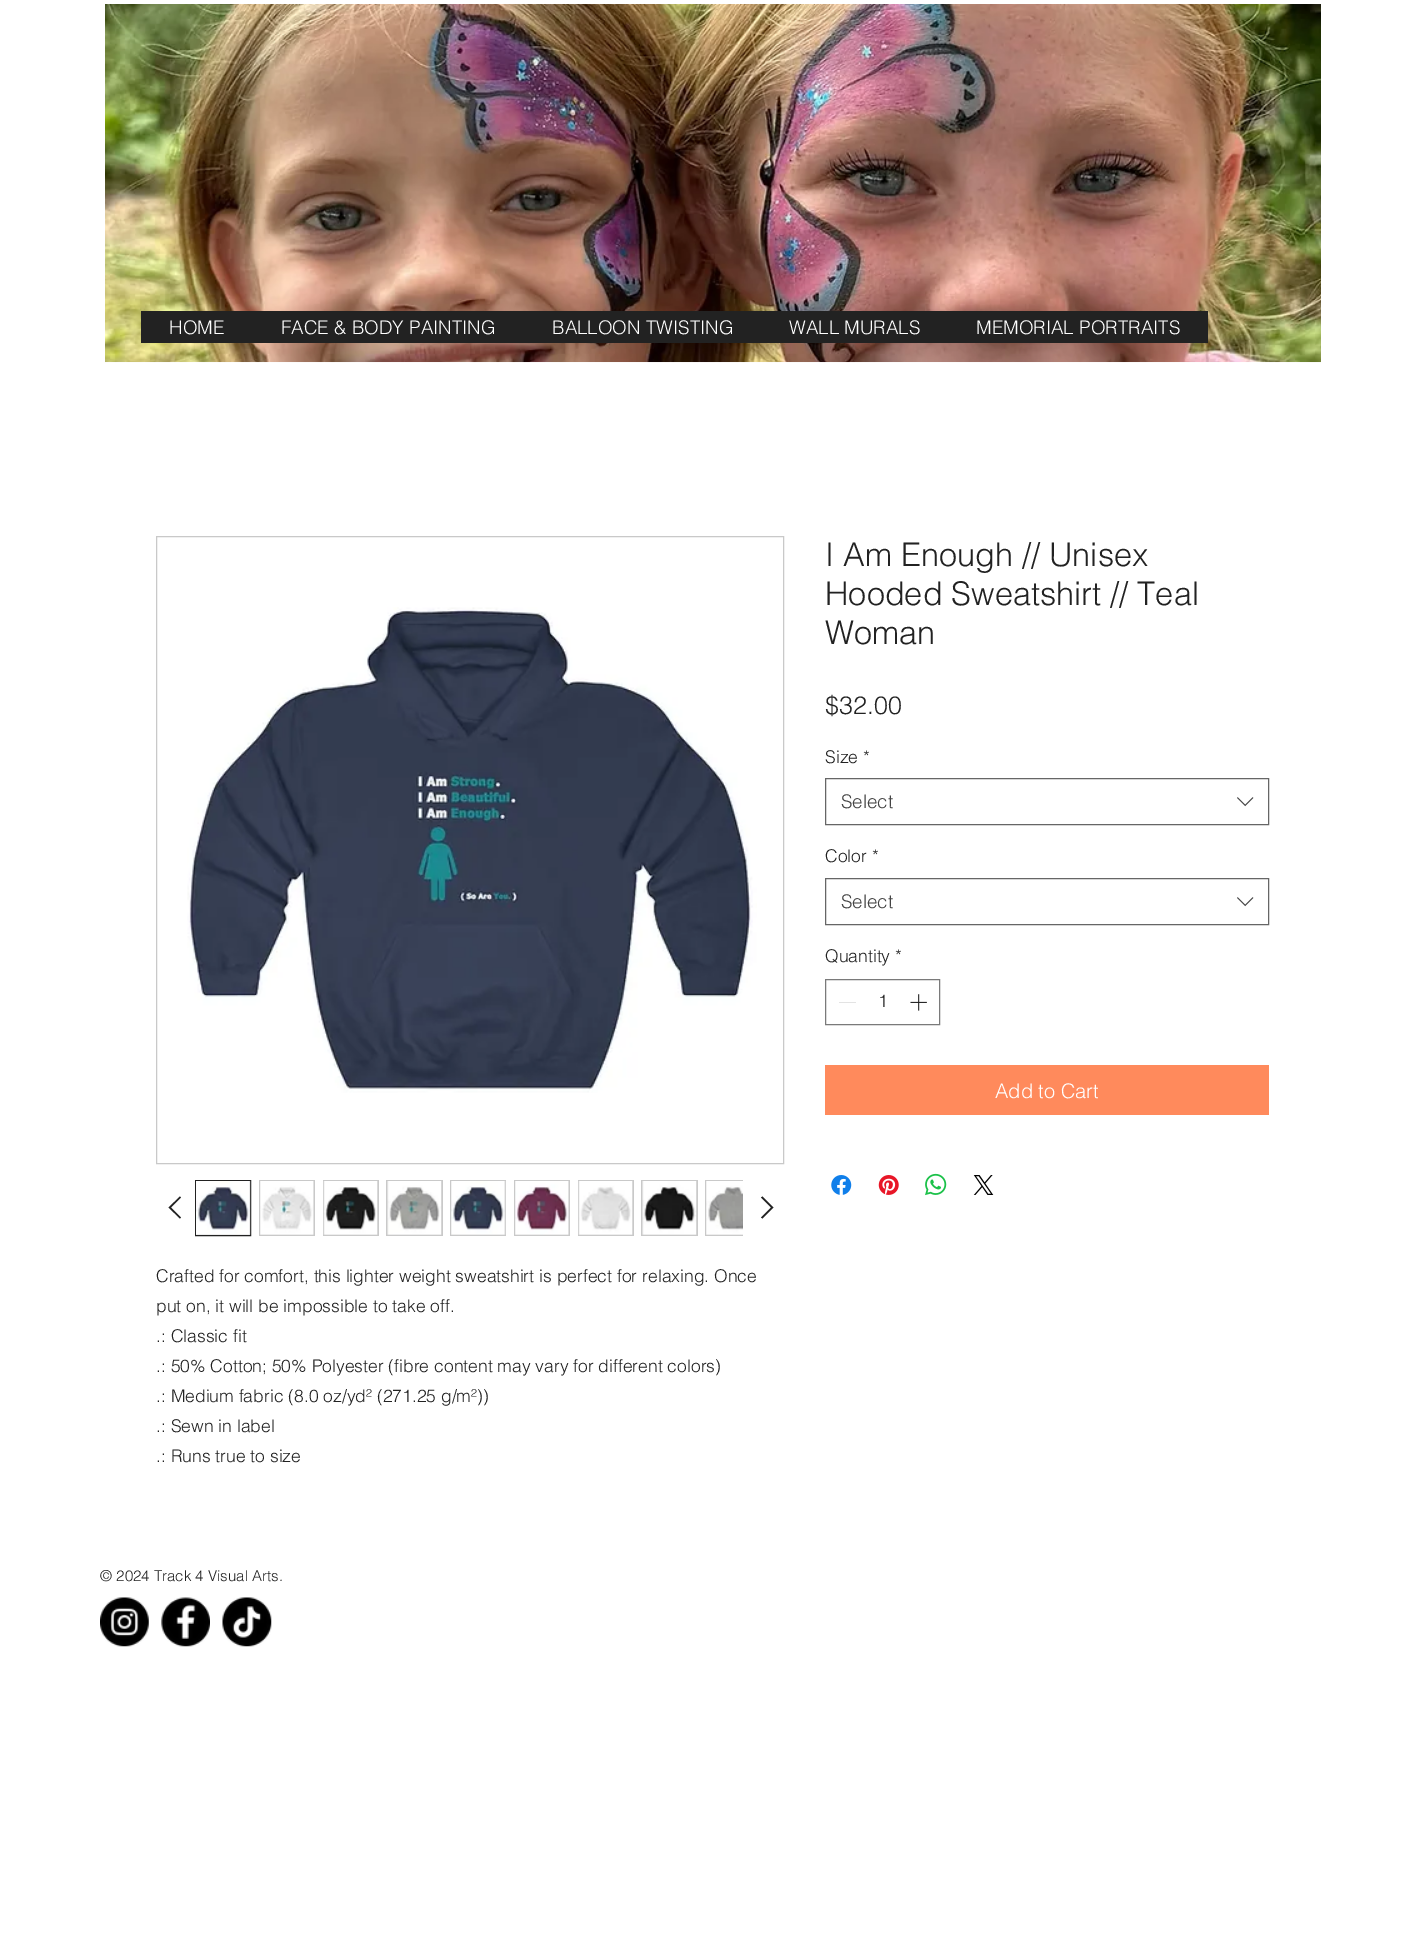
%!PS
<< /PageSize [1424 1938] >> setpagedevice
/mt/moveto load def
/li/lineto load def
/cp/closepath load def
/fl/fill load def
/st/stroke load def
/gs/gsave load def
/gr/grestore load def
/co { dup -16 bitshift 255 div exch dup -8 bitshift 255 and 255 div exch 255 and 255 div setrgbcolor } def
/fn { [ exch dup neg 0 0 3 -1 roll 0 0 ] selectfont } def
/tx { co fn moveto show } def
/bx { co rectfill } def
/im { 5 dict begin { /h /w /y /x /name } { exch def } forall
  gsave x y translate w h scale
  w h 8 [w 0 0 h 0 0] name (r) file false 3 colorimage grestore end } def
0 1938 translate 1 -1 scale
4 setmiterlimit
0 0 1424 1938 16#FFFFFF bx
(media/1.raw) 105 4 1216 359 im
141 311 1067 32 16#222222 bx
16#666666 co
825.5 778.5 443 46 rectstroke
(media/2.raw) 1237 797 17 10 im
825.5 878.5 443 46 rectstroke
(media/2.raw) 1237 897 17 10 im
16#7A7A7A co
825.5 979.5 114 45 rectstroke
839 1002 17 1 16#E3E3E3 bx
(media/3.raw) 910 994 17 17 im
825 1065 444 50 16#FF8A5C bx
(media/4.raw) 831 1175 21 20 im
(media/5.raw) 878 1175 21 20 im
(media/6.raw) 925 1173 22 23 im
(media/7.raw) 973 1175 21 20 im
16#C9C9C9 co
156.5 536.5 627 627 rectstroke
(media/8.raw) 187 607 570 486 im
16#222222 co
180 1196.5 mt 181 1197.5 li 171 1207.5 li 181 1217.5 li 180 1218.5 li 168.5 1207.5 li cp eofill
16#C9C9C9 co
195.5 1180.5 mt 250.5 1180.5 li 250.5 1235.5 li 195.5 1235.5 li cp gs fl gr
16#222222 co
st
(media/9.raw) 196 1181 55 54 im
259 1180 56 56 16#C9C9C9 bx
(media/10.raw) 260 1181 54 54 im
323 1180 56 56 16#C9C9C9 bx
(media/11.raw) 323 1181 55 54 im
386 1180 57 56 16#C9C9C9 bx
(media/12.raw) 387 1181 55 54 im
450 1180 56 56 16#C9C9C9 bx
(media/13.raw) 451 1181 55 54 im
514 1180 56 56 16#C9C9C9 bx
(media/14.raw) 515 1181 54 54 im
578 1180 56 56 16#C9C9C9 bx
(media/15.raw) 578 1181 55 54 im
641 1180 57 56 16#C9C9C9 bx
(media/16.raw) 642 1181 55 54 im
705 1180 38 56 16#C9C9C9 bx
(media/17.raw) 706 1181 37 54 im
16#222222 co
762.5 1196.5 mt 773.5 1207.5 li 762.5 1218.5 li 761 1217.5 li 771 1207.5 li 761 1197.5 li cp eofill
(media/18.raw) 100 1597 49 50 im
(media/19.raw) 161 1597 49 50 im
(media/20.raw) 222 1597 50 50 im
(HOME) 169 334 /helvetica-Light 18.75 16#FFFFFF tx
(FACE & BODY PAINTING) 281 334 /helvetica-Light 18.75 16#FFFFFF tx
(BALLOON TWISTING) 552 334 /helvetica-Light 18.75 16#FFFFFF tx
(WALL MURALS) 789 334 /helvetica-Light 18.75 16#FFFFFF tx
(MEMORIAL PORTRAITS) 976 334 /helvetica-Light 18.75 16#FFFFFF tx
(I Am Enough // Unisex) 825 566 /helvetica-Light 32.5 16#222222 tx
(Hooded Sweatshirt // Teal) 825 605 /helvetica-Light 32.5 16#222222 tx
(Woman) 825 644 /helvetica-Light 32.5 16#222222 tx
($32.00) 825 714 /helvetica-Light 25 16#222222 tx
(Size *) 825 763 /helvetica-Light 17.5 16#222222 tx
(Select) 841 808 /helvetica-Light 18.75 16#444444 tx
(Color *) 825 862 /helvetica-Light 17.5 16#222222 tx
(Select) 841 908 /helvetica-Light 18.75 16#444444 tx
(Quantity *) 825 962 /helvetica-Light 17.5 16#222222 tx
(1) 878 1007 /helvetica-Light 17.5 16#222222 tx
(Add to Cart) 995 1098 /helvetica-Light 20 16#FFFFFF tx
(Crafted for comfort, this lighter weight sweatshirt is perfect for relaxing. Once) 156 1282 /helvetica-Light 17.5 16#222222 tx
(put on, it will be impossible to take off.) 156 1312 /helvetica-Light 17.5 16#222222 tx
(.: Classic fit) 156 1342 /helvetica-Light 17.5 16#222222 tx
(.: 50% Cotton; 50% Polyester \(fibre content may vary for different colors\)) 156 1372 /helvetica-Light 17.5 16#222222 tx
(.: Medium fabric \(8.0 oz/yd² \(271.25 g/m²\)\)) 156 1402 /helvetica-Light 17.5 16#222222 tx
(.: Sewn in label) 156 1432 /helvetica-Light 17.5 16#222222 tx
(.: Runs true to size) 156 1462 /helvetica-Light 17.5 16#222222 tx
(© 2024 Track 4 Visual Arts.) 100 1581 /helvetica-Light 15 16#222222 tx
showpage
